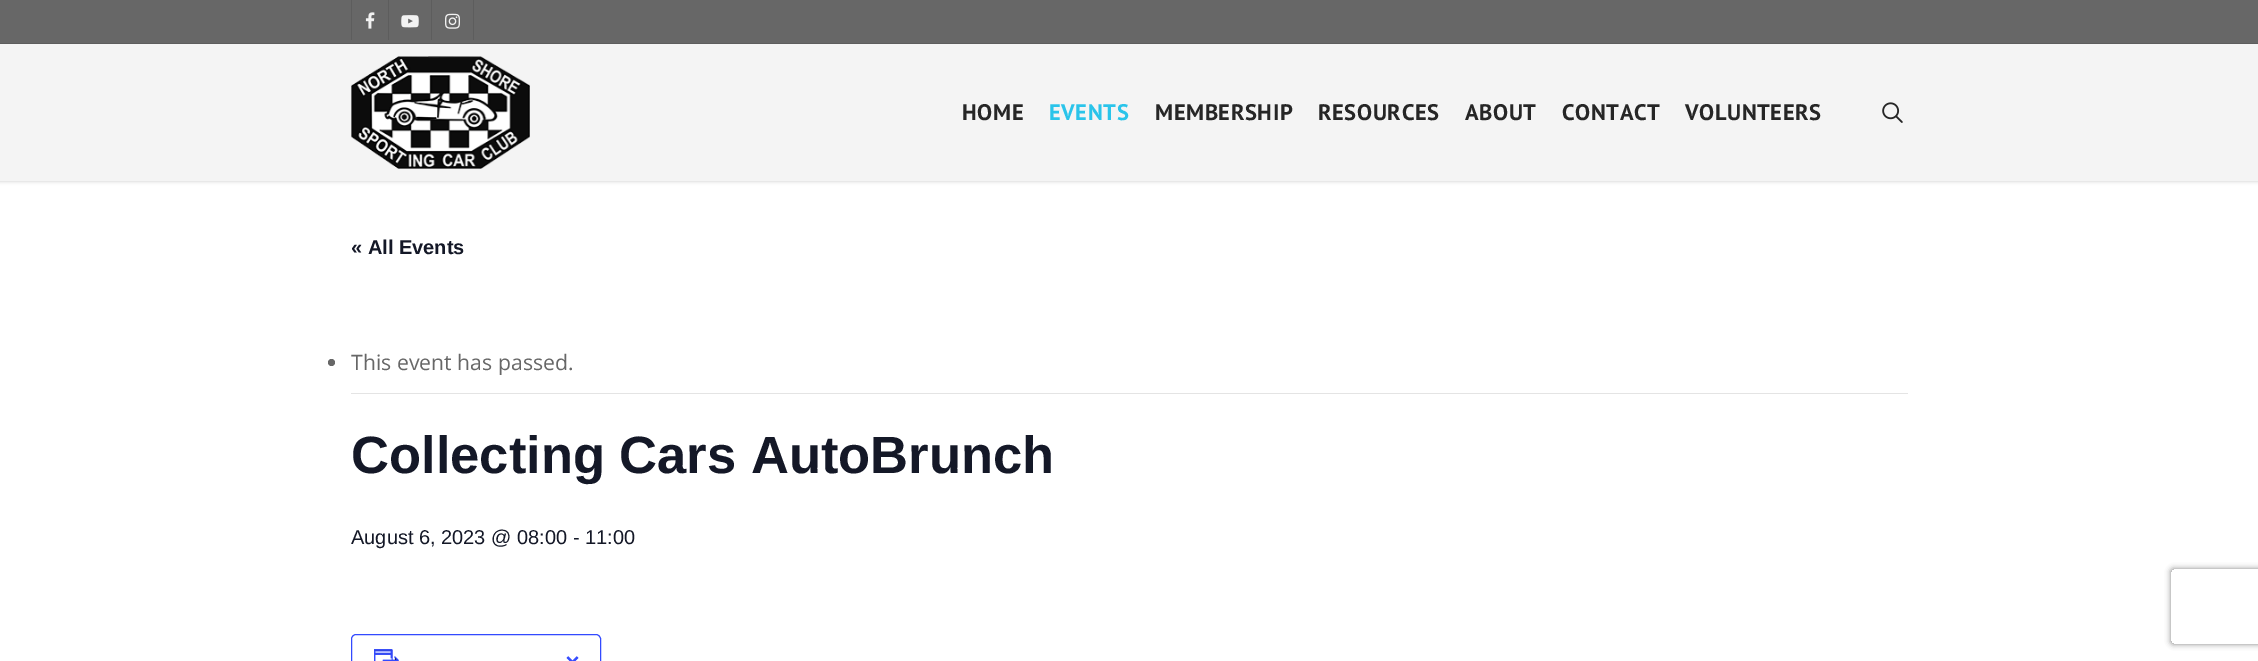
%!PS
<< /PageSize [2258 661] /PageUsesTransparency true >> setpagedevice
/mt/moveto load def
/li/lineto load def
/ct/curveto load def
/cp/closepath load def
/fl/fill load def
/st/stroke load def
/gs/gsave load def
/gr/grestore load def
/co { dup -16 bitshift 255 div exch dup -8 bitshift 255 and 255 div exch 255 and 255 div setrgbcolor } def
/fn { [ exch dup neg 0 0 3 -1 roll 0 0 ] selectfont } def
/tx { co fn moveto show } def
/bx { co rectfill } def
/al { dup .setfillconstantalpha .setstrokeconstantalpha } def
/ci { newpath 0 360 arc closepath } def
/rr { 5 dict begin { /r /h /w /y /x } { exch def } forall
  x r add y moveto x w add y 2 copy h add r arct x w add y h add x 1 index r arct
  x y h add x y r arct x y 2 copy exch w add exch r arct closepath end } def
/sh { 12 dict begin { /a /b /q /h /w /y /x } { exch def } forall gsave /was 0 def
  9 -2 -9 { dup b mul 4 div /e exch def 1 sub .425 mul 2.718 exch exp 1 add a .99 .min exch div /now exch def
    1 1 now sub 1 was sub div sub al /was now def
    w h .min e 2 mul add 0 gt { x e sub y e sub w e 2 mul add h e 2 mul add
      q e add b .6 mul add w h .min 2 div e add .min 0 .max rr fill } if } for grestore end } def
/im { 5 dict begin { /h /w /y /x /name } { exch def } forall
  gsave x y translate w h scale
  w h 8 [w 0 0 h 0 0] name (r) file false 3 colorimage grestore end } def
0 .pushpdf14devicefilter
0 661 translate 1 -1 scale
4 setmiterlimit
0 0 2258 661 16#FFFFFF bx
16#000000 co
0 0 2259 181 0 2 .22 sh
0 44 2258 137 16#F4F4F4 bx
0 0 2258 43 16#676767 bx
0 43 2258 1 16#5D5D5D bx
351 0 1 40 16#5D5D5D bx
(media/1.raw) 365 12 10 17 im
388 0 1 40 16#5D5D5D bx
(media/2.raw) 401 15 18 13 im
473 0 1 40 16#5D5D5D bx
431 0 1 40 16#5D5D5D bx
(media/3.raw) 445 13 15 16 im
(media/4.raw) 351 56 179 113 im
(media/5.raw) 1882 102 21 21 im
351 393 1557 1 16#E4E4E4 bx
16#676767 co
331.5 362.5 3.5 ci fl
16#334AFF co
351.5 634.5 249 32 4.5 rr st
(media/6.raw) 374 649 25 12 im
(media/7.raw) 566 656 13 5 im
gs
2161 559 mt 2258 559 li 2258 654 li 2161 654 li cp 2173.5 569 mt 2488.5 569 li 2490 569 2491 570 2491 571.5 ct 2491 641.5 li 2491 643 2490 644 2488.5 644 ct 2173.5 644 li 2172 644 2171 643 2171 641.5 ct 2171 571.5 li 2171 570 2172 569 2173.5 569 ct cp eoclip newpath
16#808080 co
2171 569 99 75 2.5 3 1 sh
gr
/PTSans-Bold 22.5 fn
16#262626 co
962 120 mt .6 0 (HOME) ashow
16#2AC4EA co
1049 120 mt .6 0 (EVENTS) ashow
16#262626 co
1155 120 mt .6 0 (MEMBERSHIP) ashow
1318 120 mt .6 0 (RESOURCES) ashow
1465 120 mt .6 0 (ABOUT) ashow
1562 120 mt .6 0 (CONTACT) ashow
1685 120 mt .6 0 (VOLUNTEERS) ashow
(« All Events) 351 254 /LiberationSans-Bold 20 16#141827 tx
(This event has passed.) 351 370 /OpenSans-Regular 21.25 16#676767 tx
(Collecting Cars AutoBrunch) 351 473 /LiberationSans-Bold 52.5 16#141827 tx
(August 6, 2023 @ 08:00 - 11:00) 351 544 /LiberationSans-Regular 20 16#141827 tx
.poppdf14devicefilter showpage
